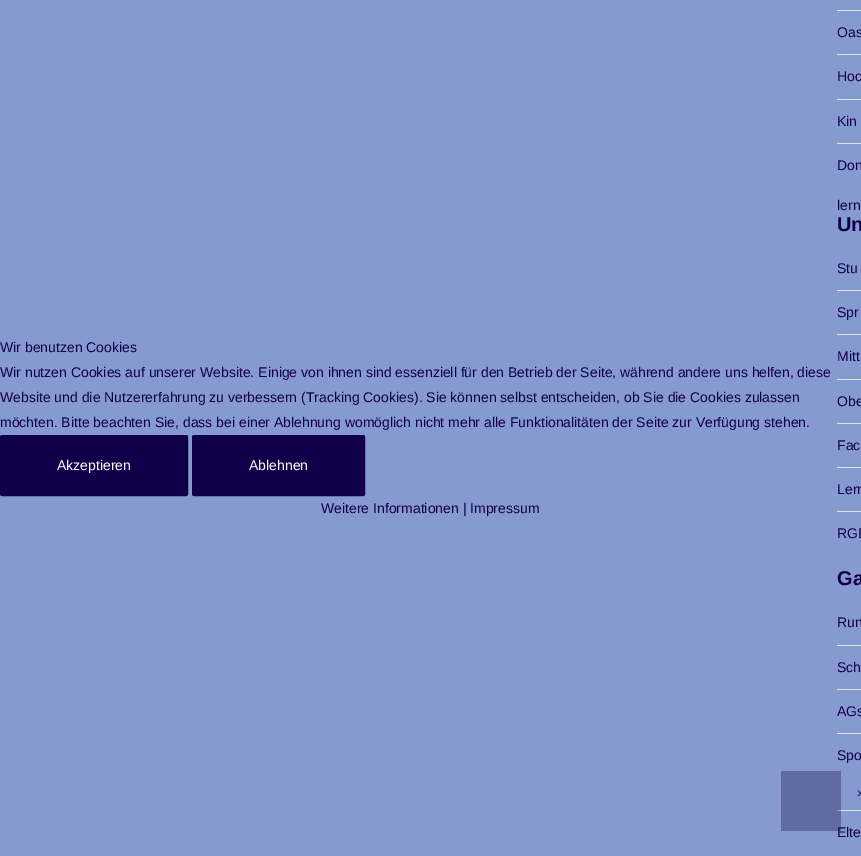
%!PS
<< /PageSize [861 856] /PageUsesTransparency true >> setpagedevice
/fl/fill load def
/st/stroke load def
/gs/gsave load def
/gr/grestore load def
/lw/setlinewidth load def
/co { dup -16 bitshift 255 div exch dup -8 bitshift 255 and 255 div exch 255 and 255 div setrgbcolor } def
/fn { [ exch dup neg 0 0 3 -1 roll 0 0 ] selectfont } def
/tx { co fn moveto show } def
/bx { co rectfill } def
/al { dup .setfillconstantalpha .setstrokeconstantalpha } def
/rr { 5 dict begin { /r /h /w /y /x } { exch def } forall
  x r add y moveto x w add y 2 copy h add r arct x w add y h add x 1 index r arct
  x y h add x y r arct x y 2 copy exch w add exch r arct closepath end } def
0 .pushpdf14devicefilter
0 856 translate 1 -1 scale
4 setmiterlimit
0 0 861 856 16#869ACF bx
16#100049 co
1 436 186 59 1 rr gs fl gr
2 lw
st
193 436 171 59 1 rr gs fl gr
st
837 10 24 1 16#E3E3E3 bx
837 54 24 1 16#E3E3E3 bx
837 99 24 1 16#E3E3E3 bx
837 143 24 1 16#E3E3E3 bx
837 290 24 1 16#E3E3E3 bx
837 334 24 1 16#E3E3E3 bx
837 379 24 1 16#E3E3E3 bx
837 423 24 1 16#E3E3E3 bx
837 467 24 1 16#E3E3E3 bx
837 511 24 1 16#E3E3E3 bx
837 645 24 1 16#E3E3E3 bx
837 689 24 1 16#E3E3E3 bx
837 733 24 1 16#E3E3E3 bx
837 810 24 1 16#E3E3E3 bx
(Wir benutzen Cookies) 0 352 /LiberationSans-Regular 14 16#100049 tx
(Wir nutzen Cookies auf unserer Website. Einige von ihnen sind essenziell für den Betrieb der Seite, während andere uns helfen, diese) 0 377 /LiberationSans-Regular 14 16#100049 tx
(Website und die Nutzererfahrung zu verbessern \(Tracking Cookies\). Sie können selbst entscheiden, ob Sie die Cookies zulassen) 0 402 /LiberationSans-Regular 14 16#100049 tx
(möchten. Bitte beachten Sie, dass bei einer Ablehnung womöglich nicht mehr alle Funktionalitäten der Seite zur Verfügung stehen.) 0 427 /LiberationSans-Regular 14 16#100049 tx
(Akzeptieren) 57 470 /LiberationSans-Regular 14 16#FFFFFF tx
(Ablehnen) 249 470 /LiberationSans-Regular 14 16#FFFFFF tx
(Weitere Informationen | Impressum) 321 513 /LiberationSans-Regular 14 16#100049 tx
(Oas) 837 37 /LiberationSans-Regular 14 16#100049 tx
(Hoc) 837 81 /LiberationSans-Regular 14 16#100049 tx
(Kin) 837 126 /LiberationSans-Regular 14 16#100049 tx
(Don) 837 170 /LiberationSans-Regular 14 16#100049 tx
(lern) 837 210 /LiberationSans-Regular 14 16#100049 tx
(Un) 837 231 /LiberationSans-Bold 20 16#100049 tx
(Stu) 837 273 /LiberationSans-Regular 14 16#100049 tx
(Spr) 837 317 /LiberationSans-Regular 14 16#100049 tx
(Mitt) 837 361 /LiberationSans-Regular 14 16#100049 tx
(Obe) 837 406 /LiberationSans-Regular 14 16#100049 tx
(Fac) 837 450 /LiberationSans-Regular 14 16#100049 tx
(Lern) 837 494 /LiberationSans-Regular 14 16#100049 tx
(RGE) 837 538 /LiberationSans-Regular 14 16#100049 tx
(Ga) 837 585 /LiberationSans-Bold 20 16#100049 tx
(Run) 837 627 /LiberationSans-Regular 14 16#100049 tx
(Sch) 837 672 /LiberationSans-Regular 14 16#100049 tx
(AGs) 837 716 /LiberationSans-Regular 14 16#100049 tx
(Spo) 837 760 /LiberationSans-Regular 14 16#100049 tx
(›) 857 797 /LiberationSans-Regular 14 16#100049 tx
(Elte) 837 837 /LiberationSans-Regular 14 16#100049 tx
0.3 al
781 771 60 60 16#0D003A bx
.poppdf14devicefilter showpage
